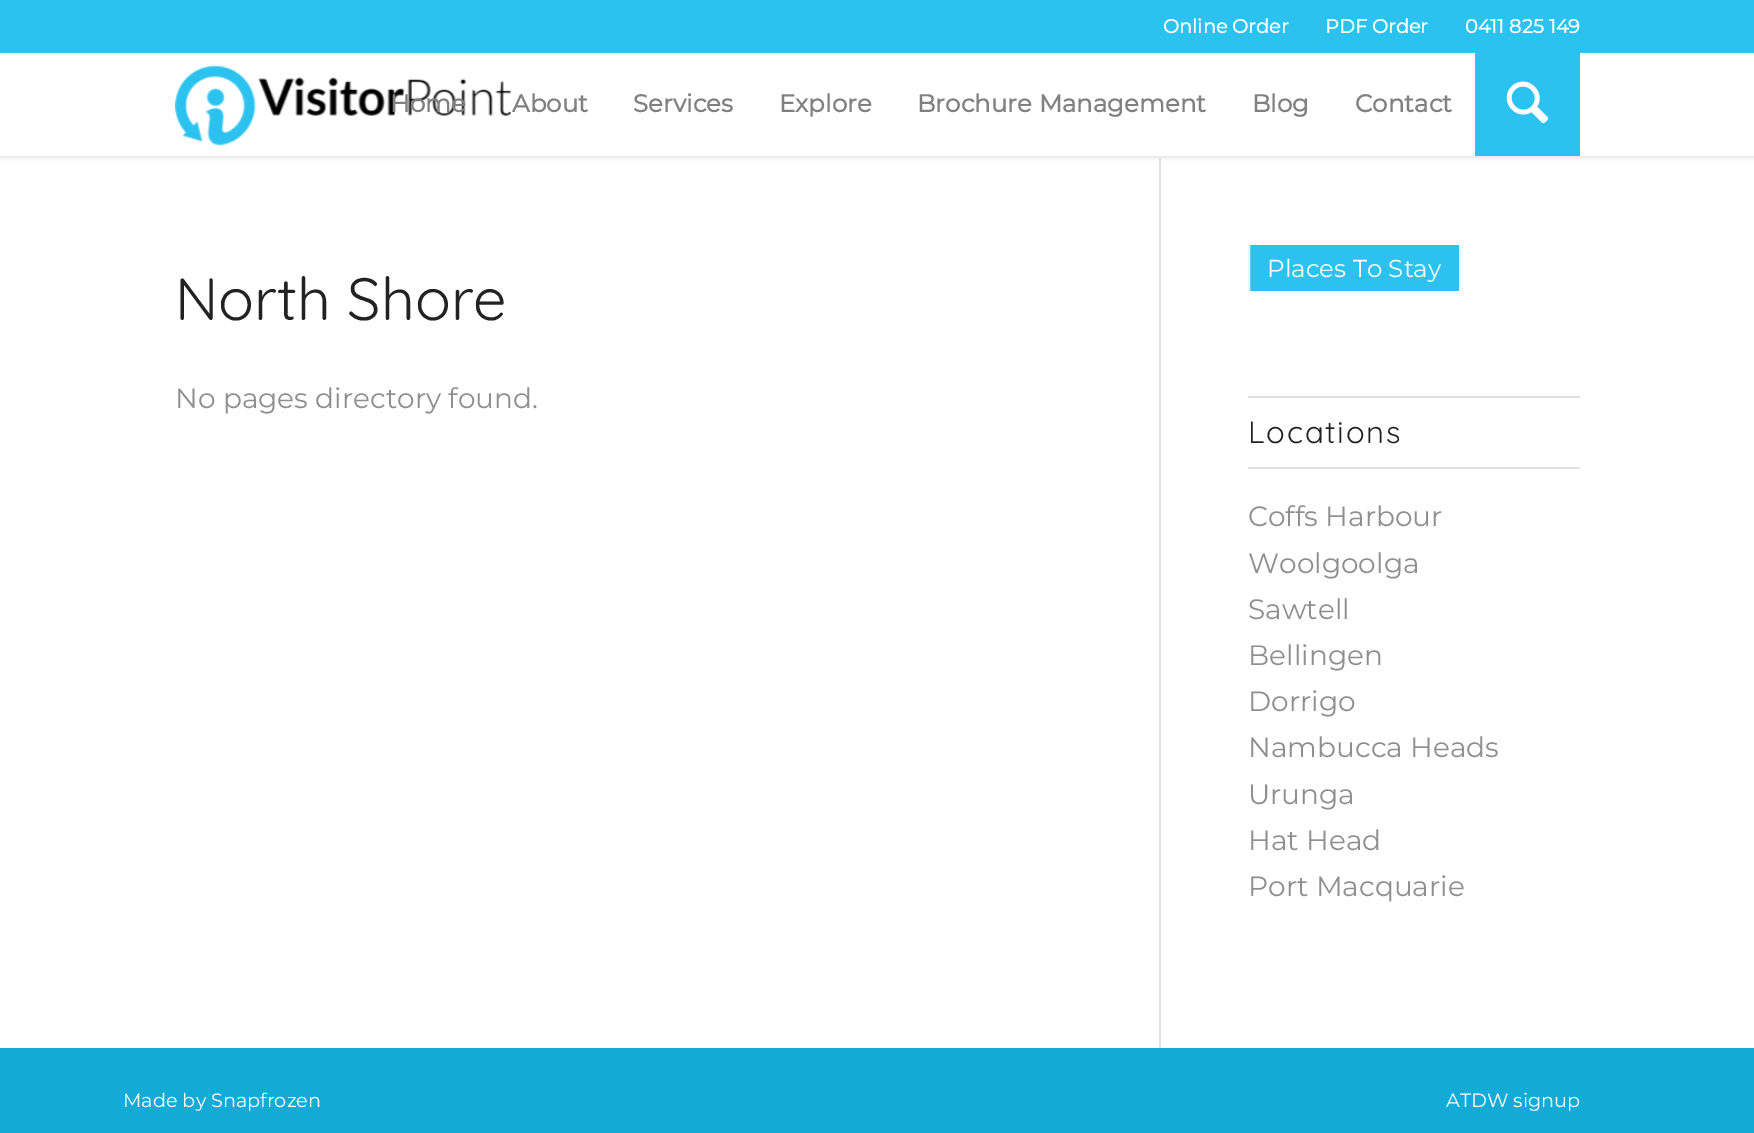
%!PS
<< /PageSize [1754 1133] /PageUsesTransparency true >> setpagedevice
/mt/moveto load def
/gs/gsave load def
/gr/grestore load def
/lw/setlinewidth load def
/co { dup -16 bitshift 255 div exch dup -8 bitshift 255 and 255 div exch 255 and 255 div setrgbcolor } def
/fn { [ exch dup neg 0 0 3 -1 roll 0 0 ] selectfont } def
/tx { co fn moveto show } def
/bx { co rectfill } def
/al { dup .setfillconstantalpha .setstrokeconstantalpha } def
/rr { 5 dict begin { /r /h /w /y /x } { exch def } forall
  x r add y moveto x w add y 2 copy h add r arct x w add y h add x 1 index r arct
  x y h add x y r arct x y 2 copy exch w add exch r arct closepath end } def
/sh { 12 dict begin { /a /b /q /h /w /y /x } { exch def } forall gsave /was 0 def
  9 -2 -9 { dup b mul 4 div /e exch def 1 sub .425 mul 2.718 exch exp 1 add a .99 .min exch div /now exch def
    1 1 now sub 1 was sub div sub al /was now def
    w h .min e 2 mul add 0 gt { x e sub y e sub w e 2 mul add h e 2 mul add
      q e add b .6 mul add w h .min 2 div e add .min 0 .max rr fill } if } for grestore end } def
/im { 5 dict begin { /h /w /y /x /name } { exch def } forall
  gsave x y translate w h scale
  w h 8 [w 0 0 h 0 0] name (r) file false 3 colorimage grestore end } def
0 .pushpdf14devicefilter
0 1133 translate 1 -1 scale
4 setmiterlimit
0 0 1754 1133 16#FFFFFF bx
1159 158 2 892 16#E1E1E1 bx
16#000000 co
-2 -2 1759 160 0 2 .1 sh
0 0 1754 53 16#2CC2F0 bx
0 53 1754 103 16#FFFFFF bx
(media/1.raw) 175 65 336 81 im
1475 53 105 103 16#2CC2F0 bx
(media/2.raw) 1506 81 43 43 im
1250 245 209 46 16#2CC2F0 bx
gs
1248 245 332 46 rectclip
16#F3F3F3 co
2 lw
1249 243 211 50 rectstroke
gr
1248 396 332 2 16#E1E1E1 bx
1248 467 332 2 16#E1E1E1 bx
0 1048 1754 85 16#11ABD6 bx
(Online Order) 1163 33 /Montserrat-Bold 19.25 16#FFFFFF tx
(PDF Order) 1325 33 /Montserrat-Bold 19.25 16#FFFFFF tx
(0411 825 149) 1465 33 /Montserrat-Bold 19.25 16#FFFFFF tx
(Home) 390 112 /Montserrat-Bold 24.5 16#808080 tx
(About) 512 112 /Montserrat-Bold 24.5 16#808080 tx
(Services) 633 112 /Montserrat-Bold 24.5 16#808080 tx
(Explore) 779 112 /Montserrat-Bold 24.5 16#808080 tx
(Brochure Management) 917 112 /Montserrat-Bold 24.5 16#808080 tx
(Blog) 1252 112 /Montserrat-Bold 24.5 16#808080 tx
(Contact) 1355 112 /Montserrat-Bold 24.5 16#808080 tx
(North Shore) 175 320 /Quicksand-Light 59.5 16#222222 tx
(No pages directory found.) 175 408 /Montserrat-Thin 28 16#8F8F8F tx
(Places To Stay) 1267 277 /Montserrat-Thin 24.5 16#FFFFFF tx
/Quicksand-Light 31 fn
16#222222 co
1248 443 mt 1.75 0 (Locations) ashow
(Coffs Harbour) 1248 526 /Montserrat-Thin 28 16#8F8F8F tx
(Woolgoolga) 1248 573 /Montserrat-Thin 28 16#8F8F8F tx
(Sawtell) 1248 619 /Montserrat-Thin 28 16#8F8F8F tx
(Bellingen) 1248 665 /Montserrat-Thin 28 16#8F8F8F tx
(Dorrigo) 1248 711 /Montserrat-Thin 28 16#8F8F8F tx
(Nambucca Heads) 1248 757 /Montserrat-Thin 28 16#8F8F8F tx
(Urunga) 1248 804 /Montserrat-Thin 28 16#8F8F8F tx
(Hat Head) 1248 850 /Montserrat-Thin 28 16#8F8F8F tx
(Port Macquarie) 1248 896 /Montserrat-Thin 28 16#8F8F8F tx
(Made by Snapfrozen) 123 1107 /Montserrat-Thin 19.25 16#FFFFFF tx
(ATDW signup) 1446 1107 /Montserrat-Thin 19.25 16#FFFFFF tx
.poppdf14devicefilter showpage
